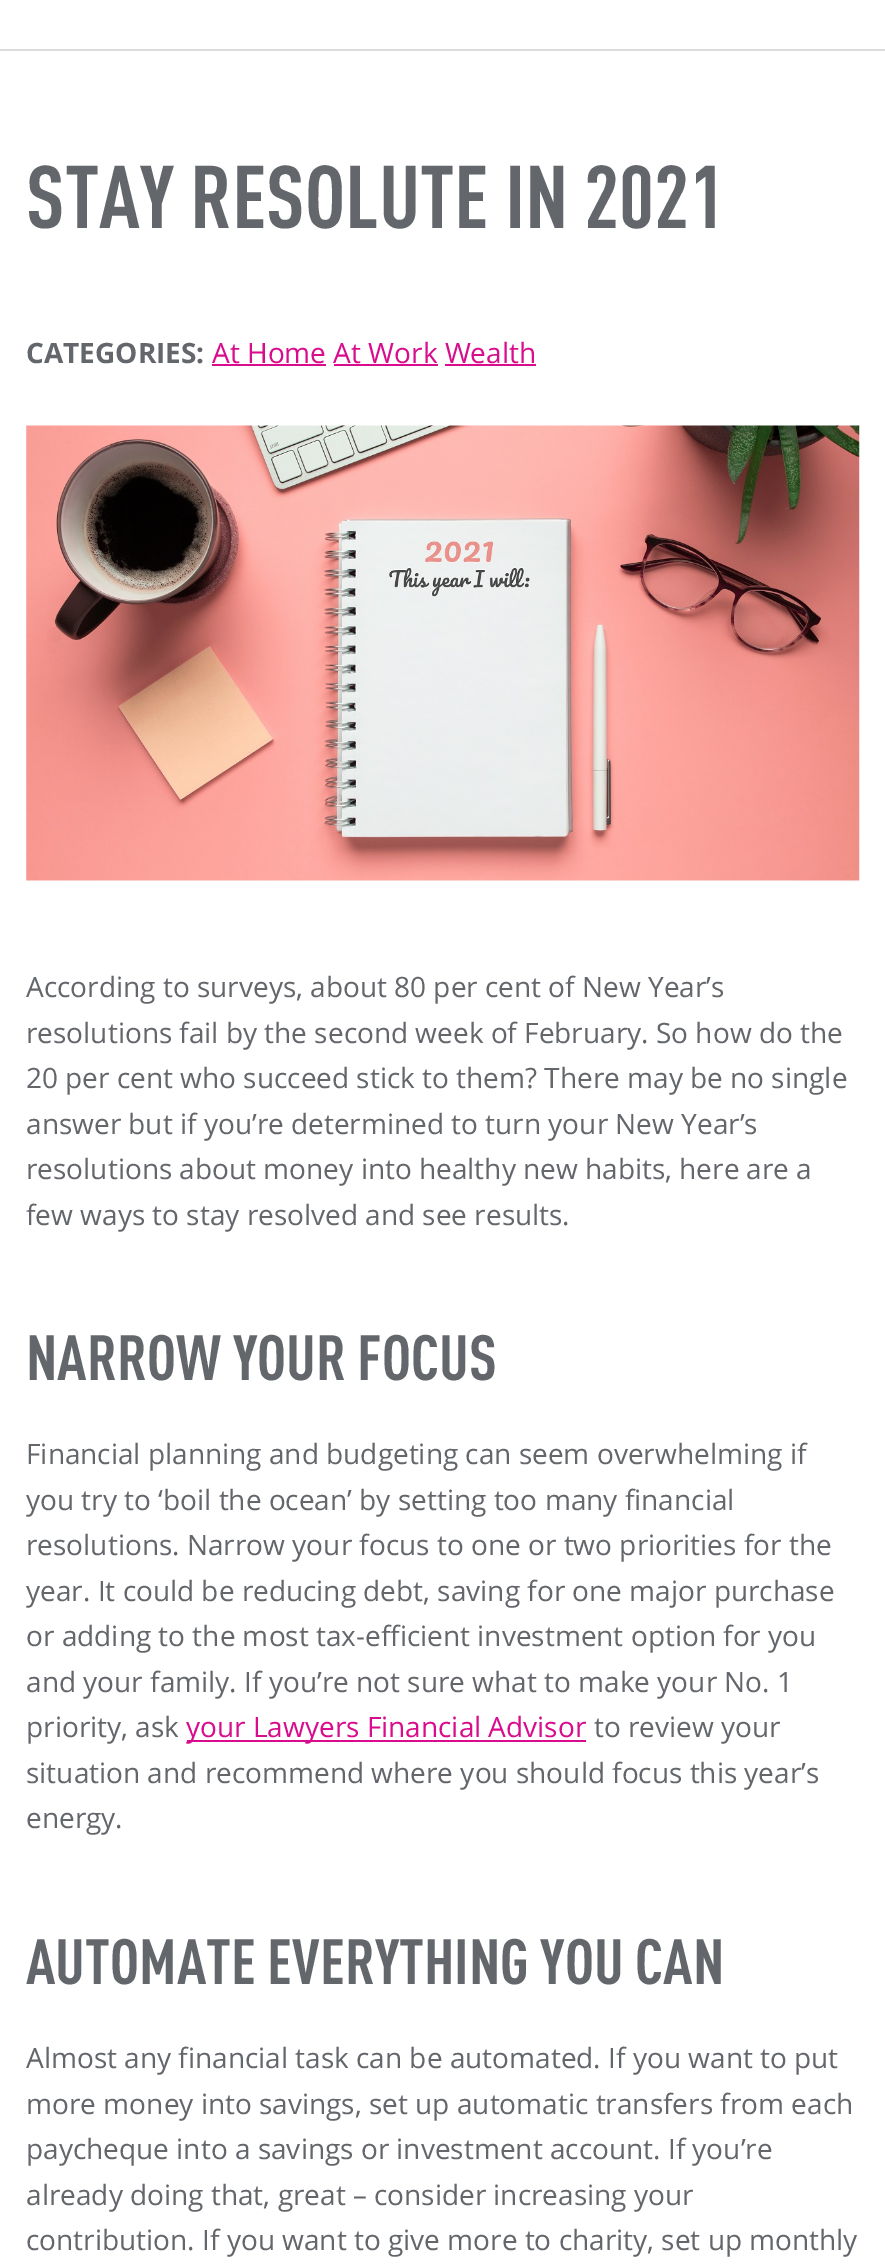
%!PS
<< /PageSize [885 2265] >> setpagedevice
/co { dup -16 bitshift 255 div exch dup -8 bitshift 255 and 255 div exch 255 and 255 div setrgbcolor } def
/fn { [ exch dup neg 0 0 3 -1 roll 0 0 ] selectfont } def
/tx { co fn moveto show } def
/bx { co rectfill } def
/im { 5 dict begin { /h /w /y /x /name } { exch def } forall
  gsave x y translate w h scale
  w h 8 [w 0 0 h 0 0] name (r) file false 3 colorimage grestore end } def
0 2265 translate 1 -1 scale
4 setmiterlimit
0 0 885 2265 16#FFFFFF bx
0 49 885 2 16#DCDCDC bx
212 364 114 2 16#D80C8C bx
334 364 104 2 16#D80C8C bx
445 364 91 2 16#D80C8C bx
(media/1.raw) 26 425 834 456 im
187 1740 399 2 16#D80C8C bx
(STAY RESOLUTE IN 2021) 26 228 /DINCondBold-Bold 87.5 16#63666A tx
(CATEGORIES:) 26 363 /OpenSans-Bold 28 16#63666A tx
(At Home At Work Wealth) 212 363 /OpenSans-Regular 28 16#D80C8C tx
(According to surveys, about 80 per cent of New Year’s) 26 997 /OpenSans-Regular 28 16#63666A tx
(resolutions fail by the second week of February. So how do the) 26 1043 /OpenSans-Regular 28 16#63666A tx
(20 per cent who succeed stick to them? There may be no single) 26 1088 /OpenSans-Regular 28 16#63666A tx
(answer but if you’re determined to turn your New Year’s) 26 1134 /OpenSans-Regular 28 16#63666A tx
(resolutions about money into healthy new habits, here are a) 26 1179 /OpenSans-Regular 28 16#63666A tx
(few ways to stay resolved and see results.) 26 1225 /OpenSans-Regular 28 16#63666A tx
(NARROW YOUR FOCUS) 26 1380 /DINCondBold-Bold 63 16#63666A tx
(Financial planning and budgeting can seem overwhelming if) 26 1464 /OpenSans-Regular 28 16#63666A tx
(you try to ‘boil the ocean’ by setting too many financial) 26 1510 /OpenSans-Regular 28 16#63666A tx
(resolutions. Narrow your focus to one or two priorities for the) 26 1555 /OpenSans-Regular 28 16#63666A tx
(year. It could be reducing debt, saving for one major purchase) 26 1601 /OpenSans-Regular 28 16#63666A tx
(or adding to the most tax-efficient investment option for you) 26 1646 /OpenSans-Regular 28 16#63666A tx
(and your family. If you’re not sure what to make your No. 1) 26 1692 /OpenSans-Regular 28 16#63666A tx
(priority, ask) 26 1737 /OpenSans-Regular 28 16#63666A tx
(your Lawyers Financial Advisor) 186 1737 /OpenSans-Regular 28 16#D80C8C tx
(to review your) 594 1737 /OpenSans-Regular 28 16#63666A tx
(situation and recommend where you should focus this year’s) 26 1783 /OpenSans-Regular 28 16#63666A tx
(energy.) 26 1828 /OpenSans-Regular 28 16#63666A tx
(AUTOMATE EVERYTHING YOU CAN) 26 1984 /DINCondBold-Bold 63 16#63666A tx
(Almost any financial task can be automated. If you want to put) 26 2068 /OpenSans-Regular 28 16#63666A tx
(more money into savings, set up automatic transfers from each) 26 2114 /OpenSans-Regular 28 16#63666A tx
(paycheque into a savings or investment account. If you’re) 26 2159 /OpenSans-Regular 28 16#63666A tx
(already doing that, great – consider increasing your) 26 2205 /OpenSans-Regular 28 16#63666A tx
(contribution. If you want to give more to charity, set up monthly) 26 2250 /OpenSans-Regular 28 16#63666A tx
showpage
